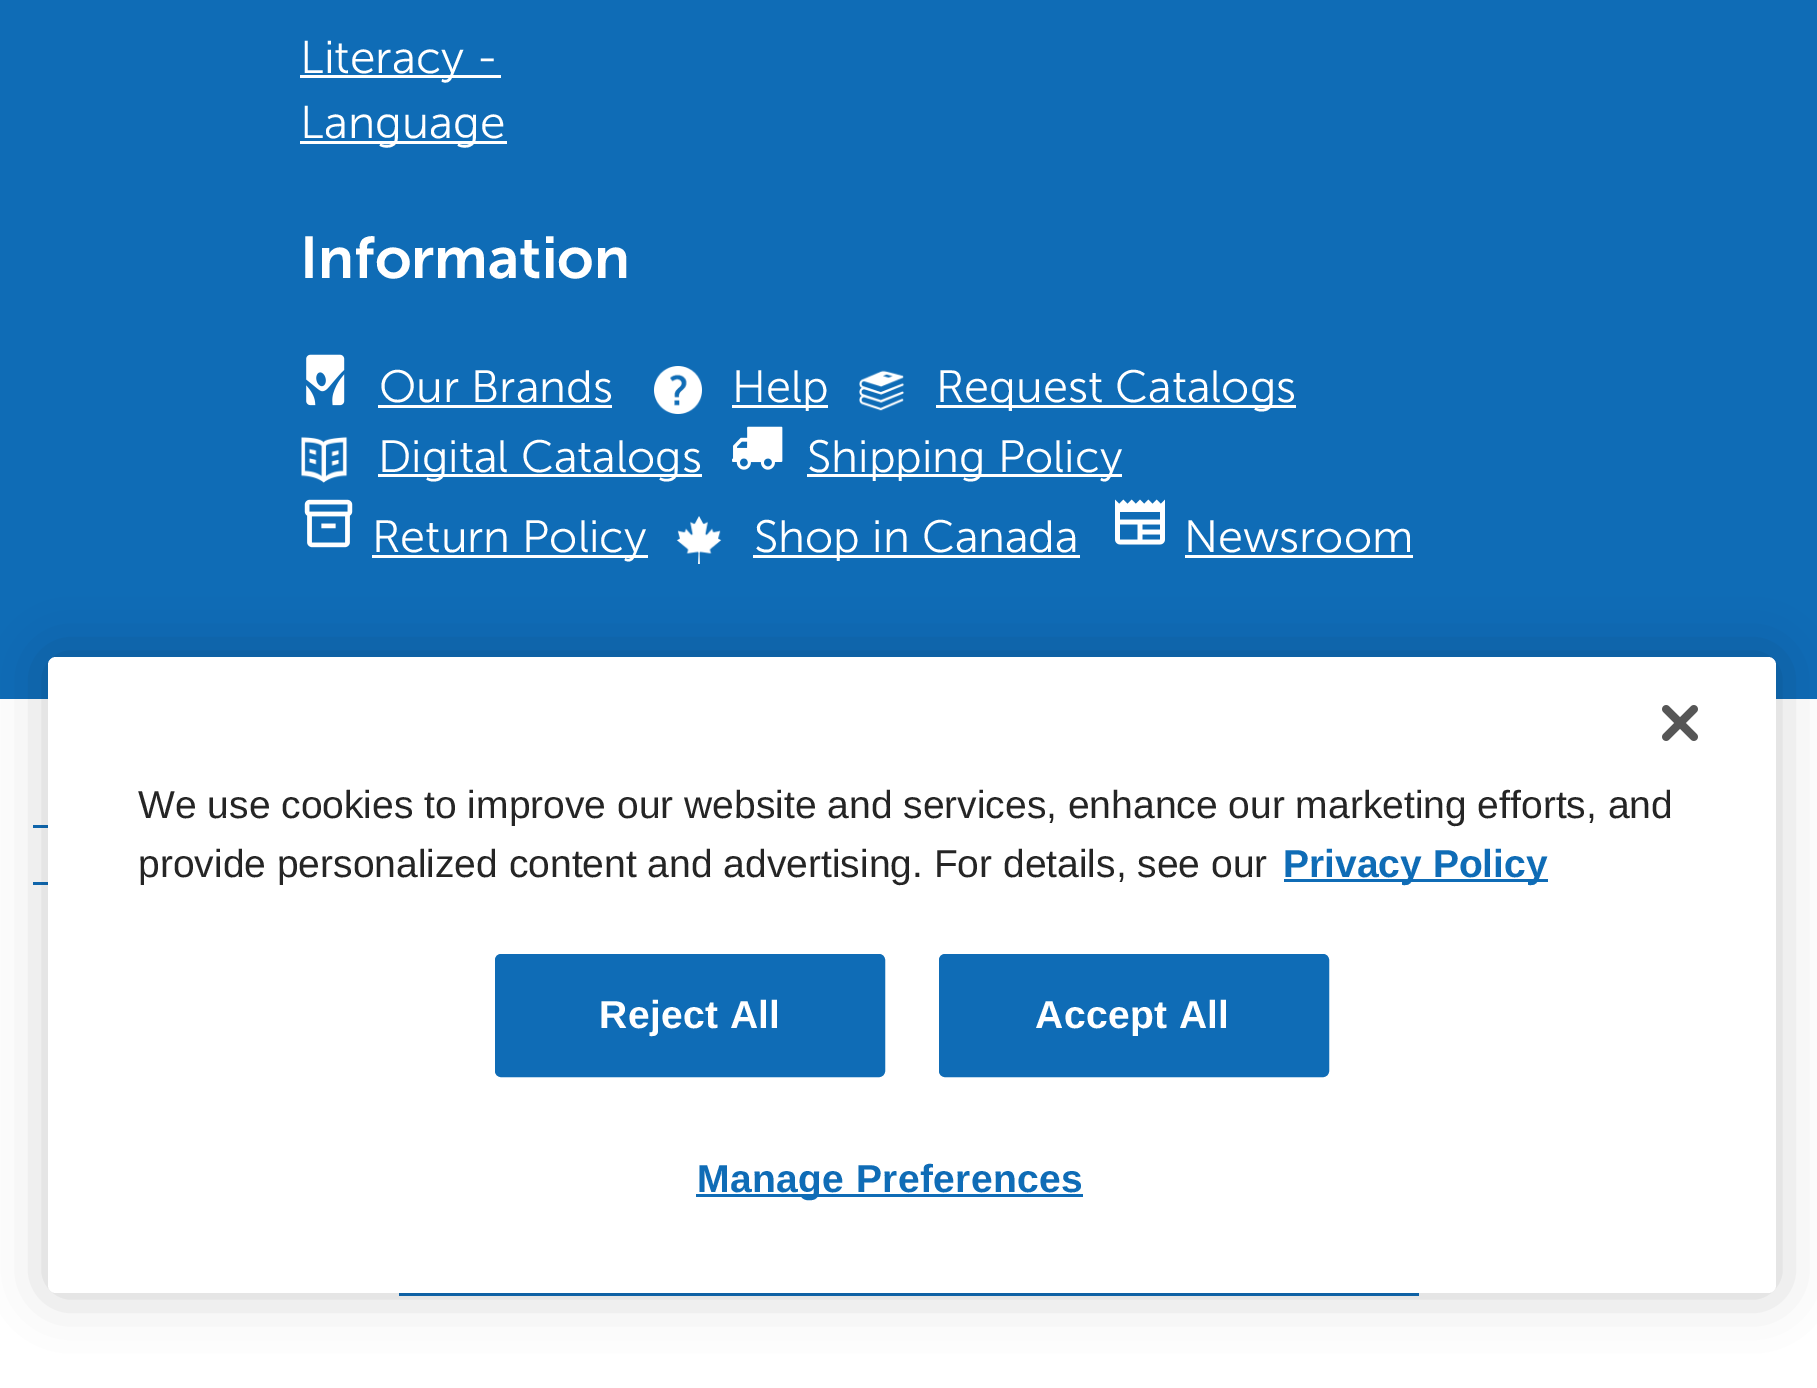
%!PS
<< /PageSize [1817 1388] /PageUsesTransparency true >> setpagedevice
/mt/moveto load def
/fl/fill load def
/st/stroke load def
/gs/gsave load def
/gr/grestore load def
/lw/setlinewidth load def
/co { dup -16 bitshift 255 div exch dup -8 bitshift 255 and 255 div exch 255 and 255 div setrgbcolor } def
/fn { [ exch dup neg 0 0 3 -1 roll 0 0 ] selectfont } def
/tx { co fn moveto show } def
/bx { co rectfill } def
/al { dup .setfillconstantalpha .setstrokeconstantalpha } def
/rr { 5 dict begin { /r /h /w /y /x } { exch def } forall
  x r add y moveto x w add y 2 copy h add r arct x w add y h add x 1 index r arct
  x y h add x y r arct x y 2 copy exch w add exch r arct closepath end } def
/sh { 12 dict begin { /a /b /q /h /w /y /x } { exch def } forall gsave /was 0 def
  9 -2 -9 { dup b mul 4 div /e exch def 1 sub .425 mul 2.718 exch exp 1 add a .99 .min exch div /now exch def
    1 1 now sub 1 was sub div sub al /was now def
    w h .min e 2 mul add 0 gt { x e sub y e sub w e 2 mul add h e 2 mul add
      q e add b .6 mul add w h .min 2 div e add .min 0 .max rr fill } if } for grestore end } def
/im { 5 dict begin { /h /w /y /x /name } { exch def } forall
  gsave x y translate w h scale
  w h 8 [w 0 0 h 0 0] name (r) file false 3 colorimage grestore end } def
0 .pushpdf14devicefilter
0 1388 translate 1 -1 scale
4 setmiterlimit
0 0 1817 1388 16#0F6CB6 bx
300 75 201 3 16#FFFFFF bx
300 141 207 3 16#FFFFFF bx
(media/1.raw) 306 354 39 52 im
378 405 234 3 16#FFFFFF bx
(media/2.raw) 654 366 48 48 im
732 405 96 3 16#FFFFFF bx
(media/3.raw) 859 370 46 41 im
936 405 360 3 16#FFFFFF bx
(media/4.raw) 301 436 47 47 im
378 474 324 3 16#FFFFFF bx
(media/5.raw) 732 426 51 44 im
807 474 315 3 16#FFFFFF bx
(media/6.raw) 304 499 49 49 im
372 555 276 3 16#FFFFFF bx
(media/7.raw) 676 516 46 48 im
753 555 327 3 16#FFFFFF bx
(media/8.raw) 1115 499 50 46 im
1185 555 228 3 16#FFFFFF bx
0 699 1817 689 16#FFFFFF bx
33 825 15 3 16#0F6CB6 bx
33 882 15 3 16#0F6CB6 bx
399 1293 1020 3 16#0F6CB6 bx
16#000000 co
48 657 1728 636 8 27 .2 sh
16#FFFFFF co
48 657 1728 636 8 rr fl
(media/9.raw) 1662 705 36 36 im
1284 879 264 3 16#0F6CB6 bx
496.5 955.5 387 120 4.5 rr gs fl gr
3 lw
st
940.5 955.5 387 120 4.5 rr gs fl gr
st
696 1194 387 3 16#0F6CB6 bx
(Literacy -) 300 73 /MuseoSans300-Regular 46 16#FFFFFF tx
(Language) 300 138 /MuseoSans300-Regular 46 16#FFFFFF tx
(Information) 300 278 /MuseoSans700-Regular 58.75 16#FFFFFF tx
(Our Brands) 379 402 /MuseoSans300-Regular 45.25 16#FFFFFF tx
(Help) 732 402 /MuseoSans300-Regular 45.25 16#FFFFFF tx
(Request Catalogs) 936 402 /MuseoSans300-Regular 45.25 16#FFFFFF tx
(Digital Catalogs) 378 472 /MuseoSans300-Regular 45.25 16#FFFFFF tx
(Shipping Policy) 807 472 /MuseoSans300-Regular 45.25 16#FFFFFF tx
(Return Policy) 372 552 /MuseoSans300-Regular 45.25 16#FFFFFF tx
(Shop in Canada) 754 552 /MuseoSans300-Regular 45.25 16#FFFFFF tx
(Newsroom) 1184 552 /MuseoSans300-Regular 45.25 16#FFFFFF tx
(We use cookies to improve our website and services, enhance our marketing efforts, and) 138 818 /LiberationSans-Regular 39 16#252525 tx
(provide personalized content and advertising. For details, see our) 138 877 /LiberationSans-Regular 39 16#252525 tx
(Privacy Policy) 1283 877 /LiberationSans-Bold 39 16#0F6CB6 tx
16#FFFFFF co
599 1028 mt .4 0 (Reject All) ashow
1035 1028 mt .4 0 (Accept All) ashow
16#0F6CB6 co
697 1192 mt .4 0 (Manage Preferences) ashow
.poppdf14devicefilter showpage
